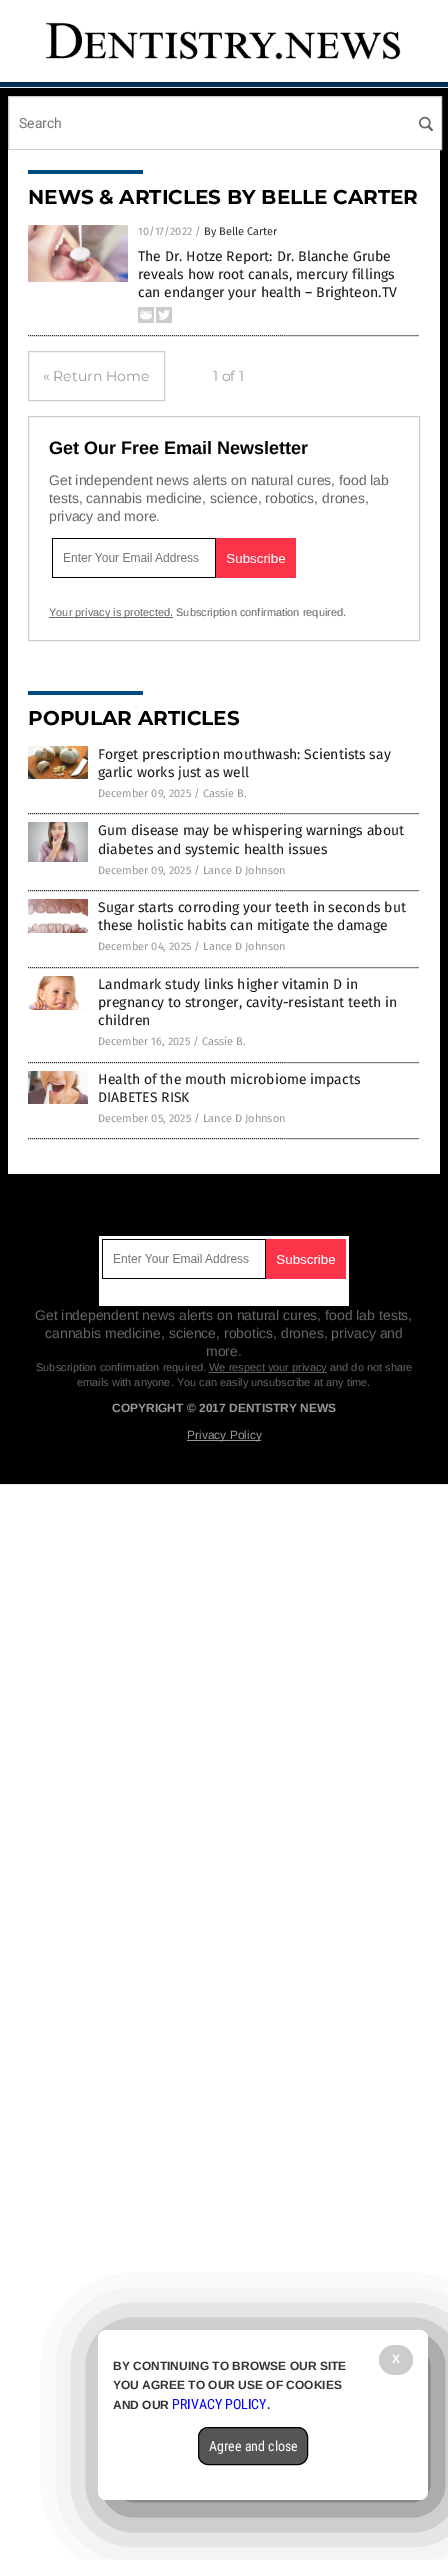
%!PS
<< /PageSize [448 2560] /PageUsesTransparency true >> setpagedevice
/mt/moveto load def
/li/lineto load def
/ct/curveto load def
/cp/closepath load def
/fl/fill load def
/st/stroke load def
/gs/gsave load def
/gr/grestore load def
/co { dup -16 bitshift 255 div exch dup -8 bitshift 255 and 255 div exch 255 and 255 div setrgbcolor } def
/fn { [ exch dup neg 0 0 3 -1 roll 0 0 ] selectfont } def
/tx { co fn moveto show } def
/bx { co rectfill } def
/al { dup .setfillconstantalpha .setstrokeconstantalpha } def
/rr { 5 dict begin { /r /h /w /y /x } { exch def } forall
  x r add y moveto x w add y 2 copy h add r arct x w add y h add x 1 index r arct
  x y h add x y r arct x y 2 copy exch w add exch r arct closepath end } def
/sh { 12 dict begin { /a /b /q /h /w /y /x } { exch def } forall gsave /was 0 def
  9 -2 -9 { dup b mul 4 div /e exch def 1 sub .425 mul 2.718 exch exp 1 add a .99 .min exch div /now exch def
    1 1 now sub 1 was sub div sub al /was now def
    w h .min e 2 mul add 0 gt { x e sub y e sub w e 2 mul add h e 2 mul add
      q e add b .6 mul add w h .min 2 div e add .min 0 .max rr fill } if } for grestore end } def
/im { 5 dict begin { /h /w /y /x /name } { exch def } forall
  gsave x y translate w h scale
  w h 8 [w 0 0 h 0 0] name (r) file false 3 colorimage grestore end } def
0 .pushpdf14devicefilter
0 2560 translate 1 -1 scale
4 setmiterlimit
0 0 448 2560 16#FFFFFF bx
0 82 448 5 16#004A80 bx
16#000000 co
-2 -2 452 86 0 5 .75 sh
0 0 448 82 16#FFFFFF bx
(media/1.raw) 45 22 356 38 im
0 88 448 1396 16#000000 bx
0 87 448 1 16#ECECEC bx
0 1484 448 1 16#ECECEC bx
16#FFFFFF co
8.5 96.5 mt 441.5 96.5 li 441.5 149.5 li 8.5 149.5 li cp gs fl gr
16#CCCCCC co
st
(media/2.raw) 419 116 14 16 im
8 150 432 1024 16#FFFFFF bx
28 170 115 4 16#004A80 bx
16#343434 co
[1 1] 0 setdash
28 335.5 mt 420 335.5 li st
(media/3.raw) 28 225 100 57 im
(media/4.raw) 138 307 16 16 im
(media/5.raw) 156 307 16 16 im
16#CCCCCC co
[] 0 setdash
28.5 351.5 136 49 rectstroke
28.5 416.5 391 224 rectstroke
(media/6.raw) 52 538 244 40 im
49 617 124 1 16#666666 bx
28 691 115 4 16#004A80 bx
16#343434 co
[1 1] 0 setdash
28 813.5 mt 420 813.5 li st
(media/7.raw) 28 746 60 33 im
28 890.5 mt 420 890.5 li st
(media/8.raw) 28 822 60 40 im
28 967.5 mt 420 967.5 li st
(media/9.raw) 28 899 60 34 im
28 1062.5 mt 420 1062.5 li st
(media/10.raw) 28 976 59 34 im
28 1138.5 mt 420 1138.5 li st
(media/11.raw) 28 1071 60 33 im
(media/12.raw) 99 1236 250 70 im
209 1372 118 1 16#666666 bx
187 1440 74 1 16#999999 bx
gs
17 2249 mt 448 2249 li 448 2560 li 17 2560 li cp 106 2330 mt 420 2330 li 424.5 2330 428 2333.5 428 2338 ct 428 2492 li 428 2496.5 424.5 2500 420 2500 ct 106 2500 li 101.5 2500 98 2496.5 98 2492 ct 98 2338 li 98 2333.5 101.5 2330 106 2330 ct cp eoclip newpath
16#555555 co
108 2340 330 170 8 30 1 sh
gr
0.9 al
16#FFFFFF co
98 2330 330 170 8 rr fl
1 al
16#CCCCCC co
379 2345 34 30 15 rr fl
16#555555 co
198.5 2427.5 109 37 9.5 rr gs fl gr
16#000000 co
[] 0 setdash
st
(Search) 19 128 /Roboto-Regular 14 16#757575 tx
(NEWS & ARTICLES BY BELLE CARTER) 28 204 /Montserrat-Bold 20 16#000000 tx
(10/17/2022 /) 138 235 /FiraSans-Regular 11 16#999999 tx
(By Belle Carter) 204 235 /FiraSans-Regular 11 16#333333 tx
(The Dr. Hotze Report: Dr. Blanche Grube) 138 261 /FiraSans-Regular 14 16#1A1A1A tx
(reveals how root canals, mercury fillings) 138 279 /FiraSans-Regular 14 16#1A1A1A tx
(can endanger your health – Brighteon.TV) 138 297 /FiraSans-Regular 14 16#1A1A1A tx
(« Return Home) 43 381 /Montserrat-Regular 14 16#999999 tx
(1 of 1) 213 381 /Montserrat-Regular 14 16#999999 tx
(Get Our Free Email Newsletter) 49 454 /LiberationSans-Bold 18 16#000000 tx
(Get independent news alerts on natural cures, food lab) 49 485 /LiberationSans-Regular 14 16#666666 tx
(tests, cannabis medicine, science, robotics, drones,) 49 503 /LiberationSans-Regular 14 16#666666 tx
(privacy and more.) 49 521 /LiberationSans-Regular 14 16#666666 tx
(Your privacy is protected. Subscription confirmation required.) 49 616 /LiberationSans-Regular 11 16#666666 tx
(POPULAR ARTICLES) 28 725 /Montserrat-Bold 20 16#000000 tx
(Forget prescription mouthwash: Scientists say) 98 759 /FiraSans-Regular 14 16#1A1A1A tx
(garlic works just as well) 98 777 /FiraSans-Regular 14 16#1A1A1A tx
(December 09, 2025 / Cassie B.) 98 797 /FiraSans-Regular 11 16#999999 tx
(Gum disease may be whispering warnings about) 98 835 /FiraSans-Regular 14 16#1A1A1A tx
(diabetes and systemic health issues) 98 854 /FiraSans-Regular 14 16#1A1A1A tx
(December 09, 2025 / Lance D Johnson) 98 874 /FiraSans-Regular 11 16#999999 tx
(Sugar starts corroding your teeth in seconds but) 98 912 /FiraSans-Regular 14 16#1A1A1A tx
(these holistic habits can mitigate the damage) 98 930 /FiraSans-Regular 14 16#1A1A1A tx
(December 04, 2025 / Lance D Johnson) 98 950 /FiraSans-Regular 11 16#999999 tx
(Landmark study links higher vitamin D in) 98 989 /FiraSans-Regular 14 16#1A1A1A tx
(pregnancy to stronger, cavity-resistant teeth in) 98 1007 /FiraSans-Regular 14 16#1A1A1A tx
(children) 98 1025 /FiraSans-Regular 14 16#1A1A1A tx
(December 16, 2025 / Cassie B.) 98 1045 /FiraSans-Regular 11 16#999999 tx
(Health of the mouth microbiome impacts) 98 1084 /FiraSans-Regular 14 16#1A1A1A tx
(DIABETES RISK) 98 1102 /FiraSans-Regular 14 16#1A1A1A tx
(December 05, 2025 / Lance D Johnson) 98 1122 /FiraSans-Regular 11 16#999999 tx
(Get independent news alerts on natural cures, food lab tests,) 35 1320 /LiberationSans-Regular 14 16#666666 tx
(cannabis medicine, science, robotics, drones, privacy and) 45 1338 /LiberationSans-Regular 14 16#666666 tx
(more.) 206 1356 /LiberationSans-Regular 14 16#666666 tx
(Subscription confirmation required.) 36 1371 /LiberationSans-Regular 11 16#666666 tx
(We respect your privacy and do not share) 209 1371 /LiberationSans-Regular 11 16#666666 tx
(emails with anyone. You can easily unsubscribe at any time.) 77 1386 /LiberationSans-Regular 11 16#666666 tx
(COPYRIGHT © 2017 DENTISTRY NEWS) 112 1412 /LiberationSans-Bold 12 16#999999 tx
(Privacy Policy) 187 1439 /LiberationSans-Regular 12 16#999999 tx
(X) 392 2363 /LiberationSans-Bold 12 16#FFFFFF tx
(BY CONTINUING TO BROWSE OUR SITE) 113 2370 /LiberationSans-Bold 12 16#333333 tx
(YOU AGREE TO OUR USE OF COOKIES) 113 2389 /LiberationSans-Bold 12 16#333333 tx
(AND OUR) 113 2409 /LiberationSans-Bold 12 16#333333 tx
(PRIVACY POLICY) 172 2409 /RobotoCondensed-Regular 14 16#0000FF tx
(.) 267 2409 /LiberationSans-Bold 12 16#333333 tx
(Agree and close) 209 2451 /RobotoCondensed-Regular 14 16#FFFFFF tx
.poppdf14devicefilter showpage
